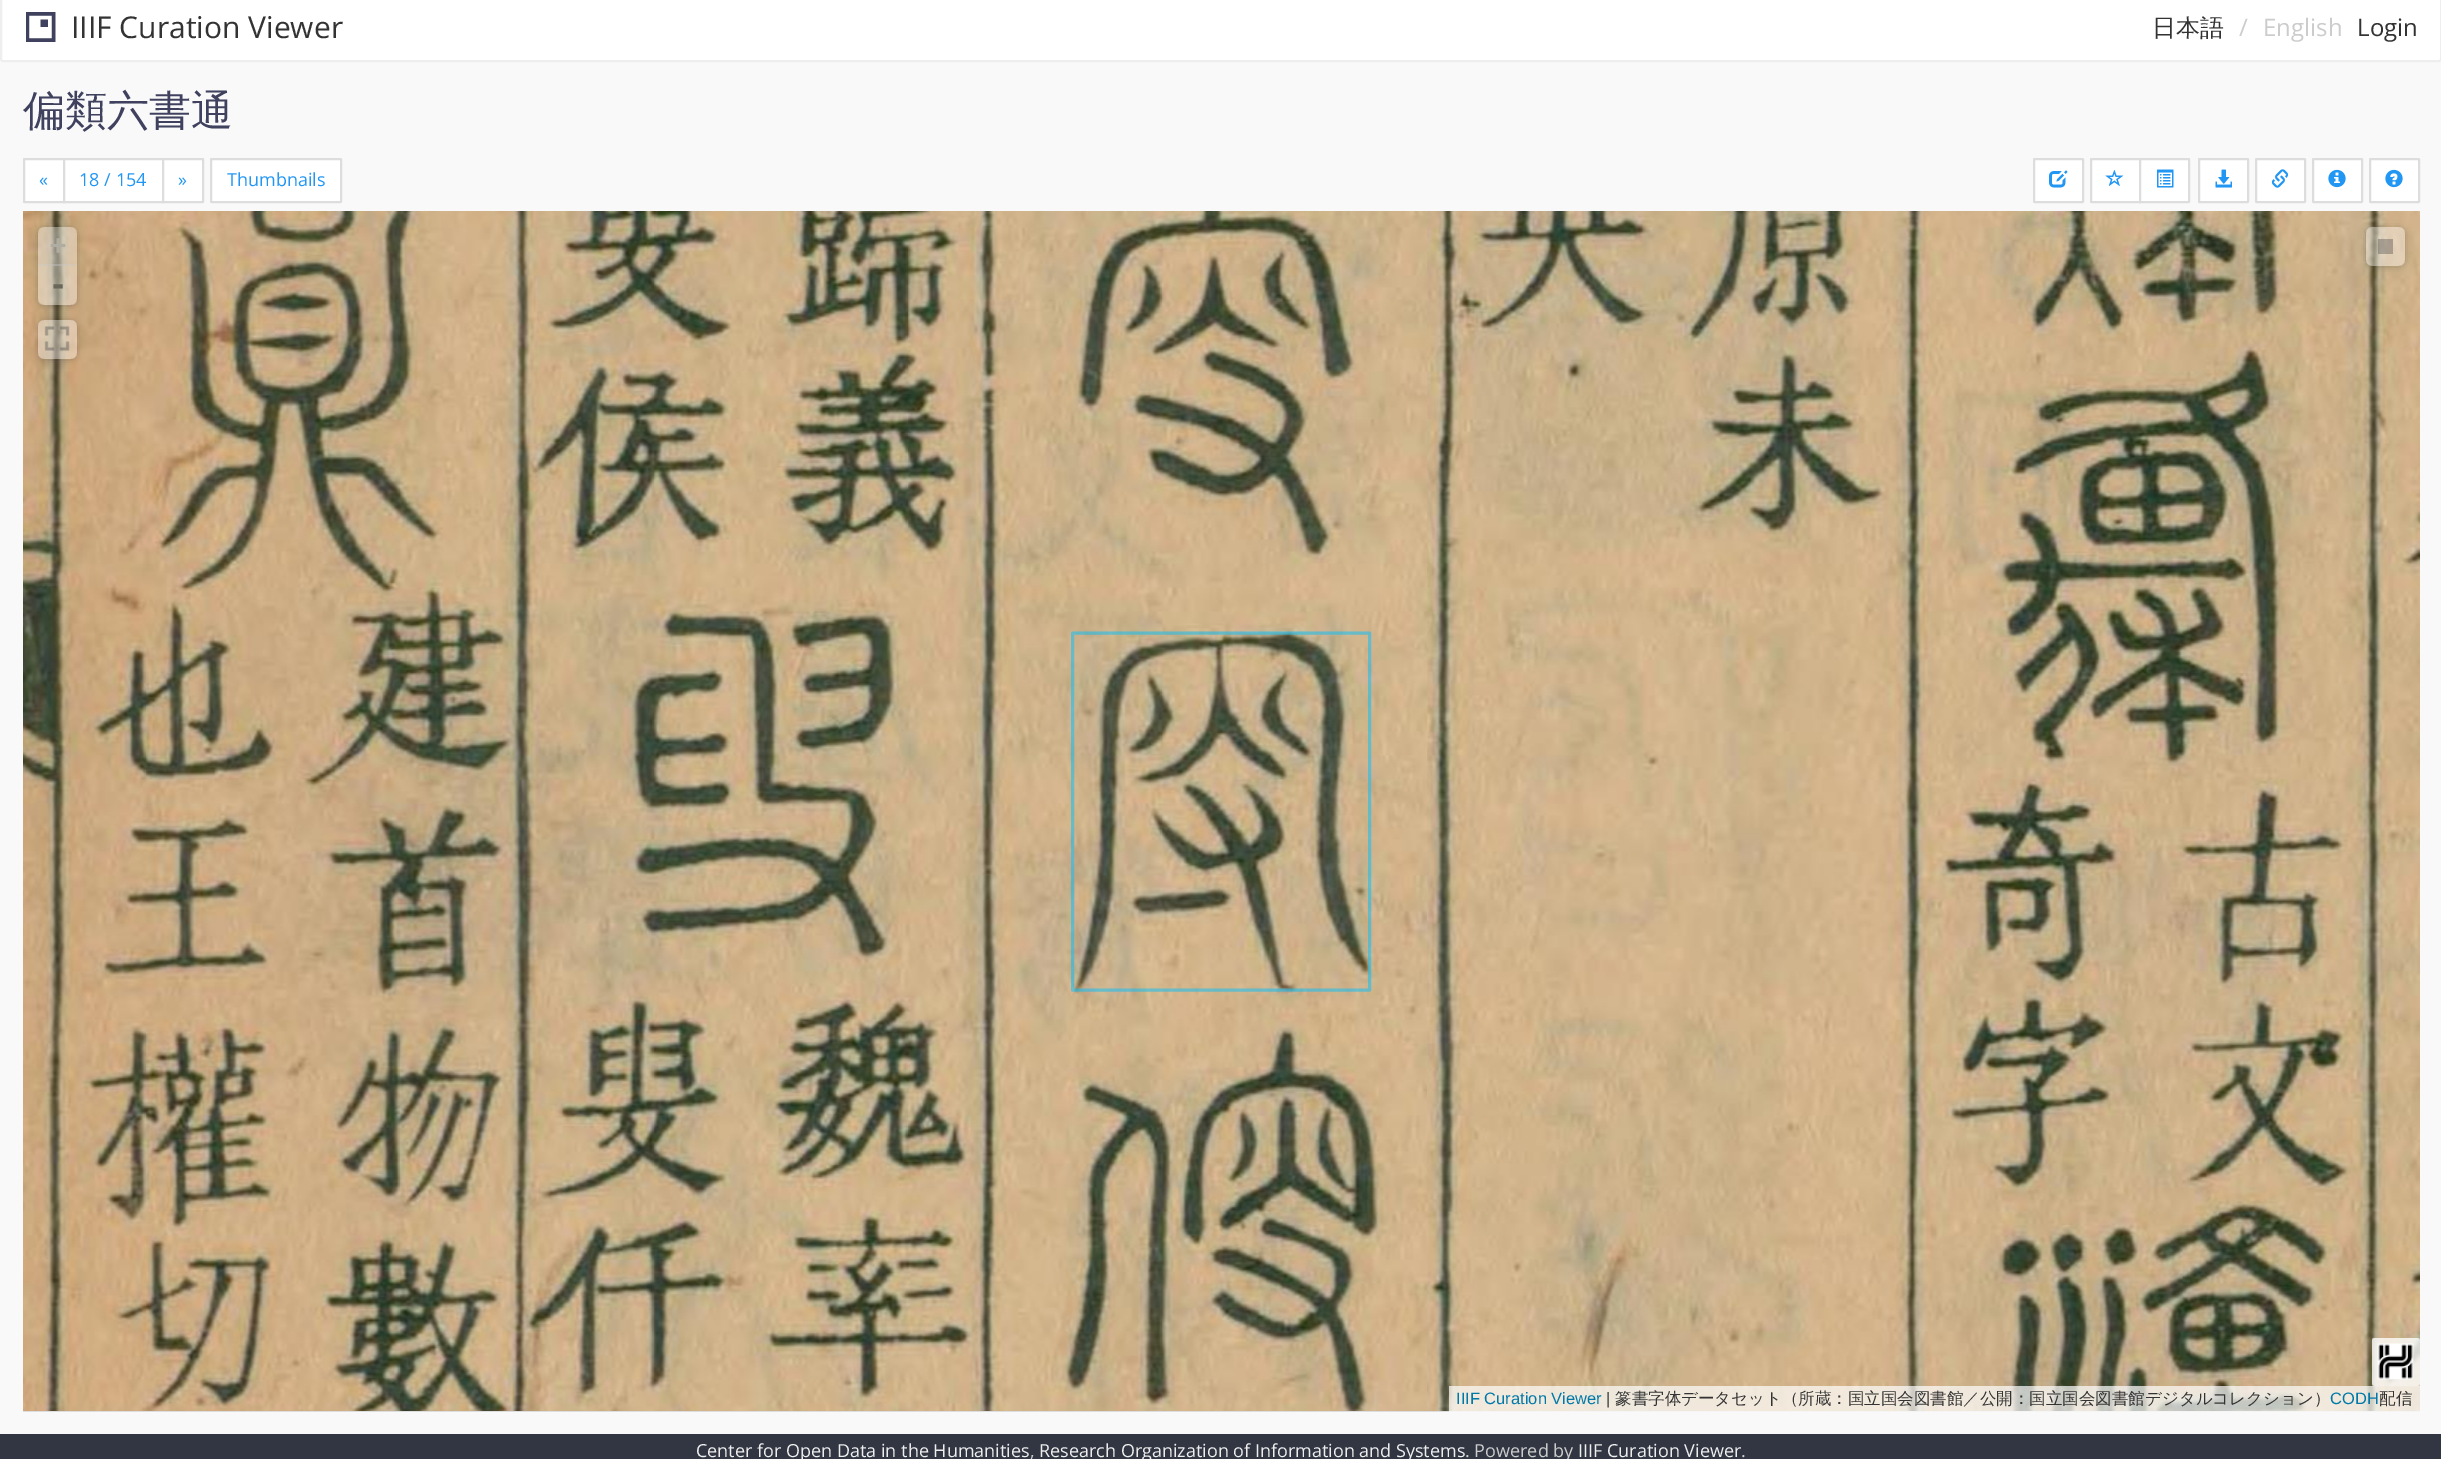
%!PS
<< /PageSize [2441 1459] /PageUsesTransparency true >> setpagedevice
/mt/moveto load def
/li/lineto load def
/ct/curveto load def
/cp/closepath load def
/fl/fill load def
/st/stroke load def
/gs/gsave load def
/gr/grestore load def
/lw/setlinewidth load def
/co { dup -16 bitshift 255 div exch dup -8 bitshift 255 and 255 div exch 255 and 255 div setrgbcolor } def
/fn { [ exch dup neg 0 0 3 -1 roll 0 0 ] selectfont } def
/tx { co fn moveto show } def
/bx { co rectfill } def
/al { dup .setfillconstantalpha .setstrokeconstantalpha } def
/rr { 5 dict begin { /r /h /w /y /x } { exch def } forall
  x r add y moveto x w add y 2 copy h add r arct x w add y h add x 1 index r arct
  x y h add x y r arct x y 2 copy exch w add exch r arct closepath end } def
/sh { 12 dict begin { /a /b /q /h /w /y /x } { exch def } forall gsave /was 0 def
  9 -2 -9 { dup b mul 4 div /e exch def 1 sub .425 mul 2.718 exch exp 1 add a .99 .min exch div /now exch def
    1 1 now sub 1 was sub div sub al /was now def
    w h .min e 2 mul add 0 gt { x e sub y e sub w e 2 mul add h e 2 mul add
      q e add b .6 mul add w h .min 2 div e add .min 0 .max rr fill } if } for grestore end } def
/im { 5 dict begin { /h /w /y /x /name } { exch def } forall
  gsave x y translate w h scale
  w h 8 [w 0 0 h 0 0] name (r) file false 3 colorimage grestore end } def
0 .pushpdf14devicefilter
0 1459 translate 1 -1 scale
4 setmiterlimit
0 0 2441 1459 16#F9F9F9 bx
16#FFFFFF co
1 -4 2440 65 2 rr gs fl gr
16#EEEEEE co
2 lw
st
(media/1.raw) 26 12 30 30 im
16#FFFFFF co
24.5 159 mt 64 159 li 64 202 li 24.5 202 li 24 202 24 202 24 201.5 ct 24 159.5 li 24 159 24 159 24.5 159 ct cp gs fl gr
16#DDDDDD co
st
16#FFFFFF co
64 159 mt 163 159 li 163 202 li 64 202 li cp gs fl gr
16#DDDDDD co
st
16#FFFFFF co
163 159 mt 202.5 159 li 203 159 203 159 203 159.5 ct 203 201.5 li 203 202 203 202 202.5 202 ct 163 202 li cp gs fl gr
16#DDDDDD co
st
16#FFFFFF co
211 159 130 43 .5 rr gs fl gr
16#DDDDDD co
st
16#FFFFFF co
2034 159 49 43 .5 rr gs fl gr
16#DDDDDD co
st
(media/2.raw) 2049 170 19 18 im
16#FFFFFF co
2091.5 159 mt 2140 159 li 2140 202 li 2091.5 202 li 2091 202 2091 202 2091 201.5 ct 2091 159.5 li 2091 159 2091 159 2091.5 159 ct cp gs fl gr
16#DDDDDD co
st
(media/3.raw) 2105 170 19 16 im
16#FFFFFF co
2140 159 mt 2188.5 159 li 2189 159 2189 159 2189 159.5 ct 2189 201.5 li 2189 202 2189 202 2188.5 202 ct 2140 202 li cp gs fl gr
16#DDDDDD co
st
(media/4.raw) 2157 169 17 19 im
16#FFFFFF co
2199 159 49 43 .5 rr gs fl gr
16#DDDDDD co
st
(media/5.raw) 2215 169 17 19 im
16#FFFFFF co
2256 159 49 43 .5 rr gs fl gr
16#DDDDDD co
st
(media/6.raw) 2271 169 18 19 im
16#FFFFFF co
2313 159 49 43 .5 rr gs fl gr
16#DDDDDD co
st
(media/7.raw) 2328 169 18 19 im
16#FFFFFF co
2370 159 49 43 .5 rr gs fl gr
16#DDDDDD co
st
(media/8.raw) 2385 169 18 19 im
23 1411 2397 1 16#DDDDDD bx
(media/9.raw) 23 211 1404 1200 im
(media/10.raw) 1427 211 993 1200 im
0.5 al
16#00BFFF co
3 lw
1 setlinecap
1 setlinejoin
1072.5 990 mt 1072.5 633 li 1369.5 633 li 1369.5 990 li cp st
gs
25 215 mt 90 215 li 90 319 li 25 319 li cp 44 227 mt 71 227 li 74.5 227 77 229.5 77 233 ct 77 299 li 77 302.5 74.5 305 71 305 ct 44 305 li 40.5 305 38 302.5 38 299 ct 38 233 li 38 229.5 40.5 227 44 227 ct cp eoclip newpath
1 al
16#000000 co
38 228 39 78 6 4 .24 sh
gr
0.37 al
16#F4F4F4 co
44 227 mt 71 227 li 74.5 227 77 229.5 77 233 ct 77 266 li 38 266 li 38 233 li 38 229.5 40.5 227 44 227 ct cp fl
38 264 39 2 16#CCCCCC bx
16#FFFFFF co
38 266 mt 77 266 li 77 299 li 77 302.5 74.5 305 71 305 ct 44 305 li 40.5 305 38 302.5 38 299 ct cp fl
gs
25 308 mt 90 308 li 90 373 li 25 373 li cp 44 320 mt 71 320 li 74.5 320 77 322.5 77 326 ct 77 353 li 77 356.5 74.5 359 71 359 ct 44 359 li 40.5 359 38 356.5 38 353 ct 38 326 li 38 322.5 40.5 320 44 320 ct cp eoclip newpath
1 al
16#000000 co
38 321 39 39 6 4 .24 sh
gr
38 320 39 39 6 rr fl
1 al
(media/11.raw) 44 326 26 25 im
gs
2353 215 mt 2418 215 li 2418 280 li 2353 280 li cp 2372 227 mt 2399 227 li 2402.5 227 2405 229.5 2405 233 ct 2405 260 li 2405 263.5 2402.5 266 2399 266 ct 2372 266 li 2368.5 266 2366 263.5 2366 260 ct 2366 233 li 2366 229.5 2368.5 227 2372 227 ct cp eoclip newpath
16#000000 co
2366 228 39 39 6 4 .24 sh
gr
0.37 al
2366 227 39 39 6 rr fl
2378 239 15 15 16#464646 bx
0.7 al
16#FFFFFF co
2372 1338 48 48 3 rr fl
1 al
(media/12.raw) 2377 1343 37 37 im
0.3 al
6 lw
0 setlinecap
0 setlinejoin
2375 1341 42 42 rectstroke
0.7 al
1449 1386 971 26 16#FFFFFF bx
1 al
0 1434 2441 25 16#313642 bx
(IIIF Curation Viewer) 71 38 /OpenSans-Regular 30 16#333333 tx
(日本語) 2152 36 /WenQuanYiZenHei-Medium 24 16#333333 tx
(/) 2239 36 /OpenSans-Regular 24 16#CCCCCC tx
(English) 2263 36 /OpenSans-Regular 24 16#CCCCCC tx
(Login) 2357 36 /OpenSans-Regular 24 16#333333 tx
(偏類六書通) 23 125 /WenQuanYiZenHei-Medium 42 16#3F415E tx
(«) 39 186 /OpenSans-Regular 18 16#2196F3 tx
(18 / 154) 79 186 /OpenSans-Regular 18 16#2196F3 tx
(») 178 186 /OpenSans-Regular 18 16#2196F3 tx
(Thumbnails) 227 186 /OpenSans-Regular 18 16#2196F3 tx
(+) 50 254 /DejaVuSansMono-Bold 27 16#AFACA1 tx
(-) 49 295 /DejaVuSansMono-Bold 30 16#69665A tx
(IIIF Curation Viewer) 1456 1404 /LiberationSans-Regular 16.5 16#0078A8 tx
(|) 1606 1404 /LiberationSans-Regular 16.5 16#333333 tx
(篆書字体データセット（所蔵：国立国会図書館／公開：国立国会図書館デジタルコレクション）) 1615 1404 /WenQuanYiZenHei-Medium 16.5 16#333333 tx
(CODH) 2330 1404 /LiberationSans-Regular 16.5 16#0078A8 tx
(配信) 2379 1404 /WenQuanYiZenHei-Medium 16.5 16#333333 tx
(Center for Open Data in the Humanities) 696 1457 /OpenSans-Regular 18 16#EEEEEE tx
(,) 1030 1457 /OpenSans-Regular 18 16#CCCCCC tx
(Research Organization of Information and Systems) 1039 1457 /OpenSans-Regular 18 16#EEEEEE tx
(. Powered by) 1465 1457 /OpenSans-Regular 18 16#CCCCCC tx
(IIIF Curation Viewer) 1578 1457 /OpenSans-Regular 18 16#EEEEEE tx
(.) 1741 1457 /OpenSans-Regular 18 16#CCCCCC tx
.poppdf14devicefilter showpage
